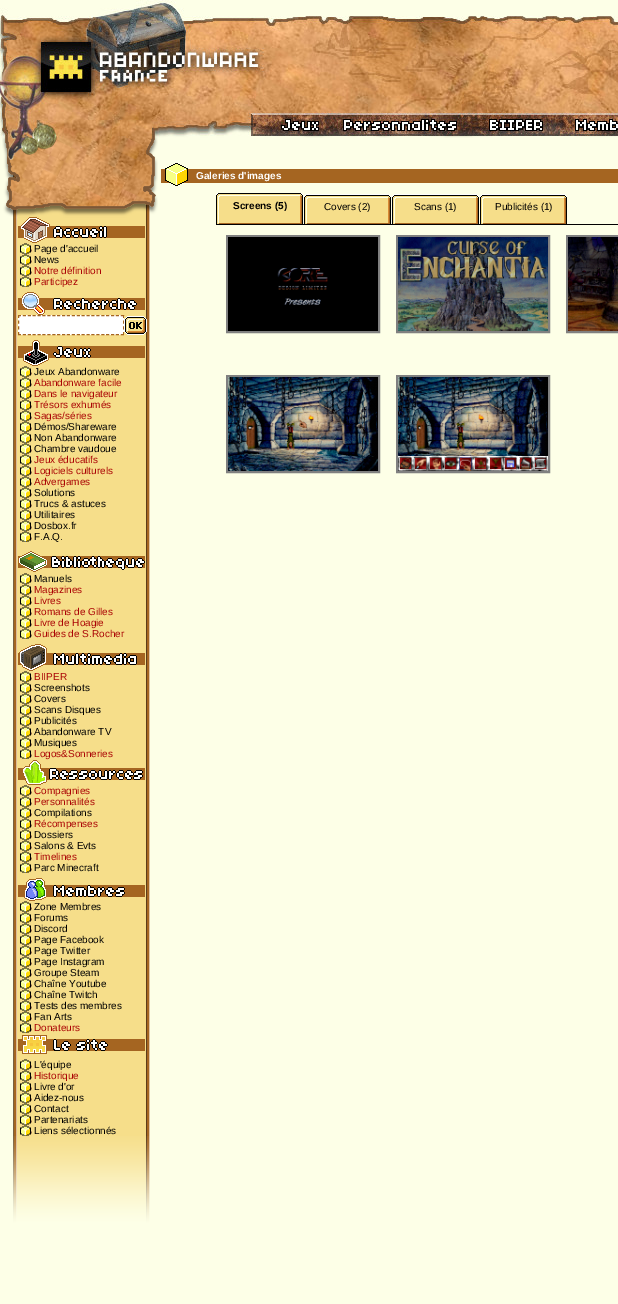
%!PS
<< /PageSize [618 1304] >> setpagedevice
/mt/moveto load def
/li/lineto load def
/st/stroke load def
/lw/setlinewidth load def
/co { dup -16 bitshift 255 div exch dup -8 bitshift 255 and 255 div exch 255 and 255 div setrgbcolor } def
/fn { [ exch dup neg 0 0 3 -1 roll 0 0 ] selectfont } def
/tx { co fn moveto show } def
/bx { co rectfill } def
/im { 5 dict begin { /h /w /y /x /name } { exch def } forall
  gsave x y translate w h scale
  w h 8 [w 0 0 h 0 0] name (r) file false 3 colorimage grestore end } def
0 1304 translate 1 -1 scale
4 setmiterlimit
0 0 618 1304 16#FDFFE7 bx
(media/1.raw) 0 0 618 138 im
(media/2.raw) 161 163 457 23 im
216 224 402 1 16#000000 bx
(media/3.raw) 216 193 87 31 im
(media/4.raw) 304 194 87 30 im
(media/4.raw) 392 194 87 30 im
(media/4.raw) 480 194 87 30 im
16#808080 co
2 lw
227 236 152 96 rectstroke
(media/5.raw) 228 237 150 94 im
397 236 152 96 rectstroke
(media/6.raw) 398 237 150 94 im
567 236 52 96 rectstroke
(media/7.raw) 568 237 50 94 im
227 376 152 96 rectstroke
(media/8.raw) 228 377 150 94 im
397 376 152 96 rectstroke
(media/9.raw) 398 377 150 94 im
(media/10.raw) 13 217 137 919 im
(media/11.raw) 2 138 156 79 im
(media/12.raw) 18 217 127 26 im
(media/13.raw) 20 243 12 11 im
(media/13.raw) 20 254 12 11 im
(media/13.raw) 20 265 12 11 im
(media/13.raw) 20 276 12 11 im
(media/14.raw) 18 292 127 23 im
18 315 106 20 16#FFFFFF bx
16#A56521 co
1 lw
[3 1.9] 0 setdash
18 315.5 mt 124 315.5 li st
[3 2.67] 0 setdash
123.5 315 mt 123.5 335 li st
[3 1.9] 0 setdash
18 334.5 mt 124 334.5 li st
[3 2.67] 0 setdash
18.5 315 mt 18.5 335 li st
(media/15.raw) 124 316 23 19 im
(media/16.raw) 18 340 127 26 im
(media/13.raw) 20 366 12 11 im
(media/13.raw) 20 377 12 11 im
(media/13.raw) 20 388 12 11 im
(media/13.raw) 20 399 12 11 im
(media/13.raw) 20 410 12 11 im
(media/13.raw) 20 421 12 11 im
(media/13.raw) 20 432 12 11 im
(media/13.raw) 20 443 12 11 im
(media/13.raw) 20 454 12 11 im
(media/13.raw) 20 465 12 11 im
(media/13.raw) 20 476 12 11 im
(media/13.raw) 20 487 12 11 im
(media/13.raw) 20 498 12 11 im
(media/13.raw) 20 509 12 11 im
(media/13.raw) 20 520 12 11 im
(media/13.raw) 20 531 12 11 im
(media/17.raw) 18 551 127 21 im
(media/13.raw) 20 573 12 11 im
(media/13.raw) 20 584 12 11 im
(media/13.raw) 20 595 12 11 im
(media/13.raw) 20 606 12 11 im
(media/13.raw) 20 617 12 11 im
(media/13.raw) 20 628 12 11 im
(media/18.raw) 18 644 127 27 im
(media/13.raw) 20 671 12 11 im
(media/13.raw) 20 682 12 11 im
(media/13.raw) 20 693 12 11 im
(media/13.raw) 20 704 12 11 im
(media/13.raw) 20 715 12 11 im
(media/13.raw) 20 726 12 11 im
(media/13.raw) 20 737 12 11 im
(media/13.raw) 20 748 12 11 im
(media/19.raw) 18 760 127 25 im
(media/13.raw) 20 785 12 11 im
(media/13.raw) 20 796 12 11 im
(media/13.raw) 20 807 12 11 im
(media/13.raw) 20 818 12 11 im
(media/13.raw) 20 829 12 11 im
(media/13.raw) 20 840 12 11 im
(media/13.raw) 20 851 12 11 im
(media/13.raw) 20 862 12 11 im
(media/20.raw) 18 878 127 23 im
(media/13.raw) 20 901 12 11 im
(media/13.raw) 20 912 12 11 im
(media/13.raw) 20 923 12 11 im
(media/13.raw) 20 934 12 11 im
(media/13.raw) 20 945 12 11 im
(media/13.raw) 20 956 12 11 im
(media/13.raw) 20 967 12 11 im
(media/13.raw) 20 978 12 11 im
(media/13.raw) 20 989 12 11 im
(media/13.raw) 20 1000 12 11 im
(media/13.raw) 20 1011 12 11 im
(media/13.raw) 20 1022 12 11 im
(media/21.raw) 18 1035 127 19 im
(media/13.raw) 20 1059 12 11 im
(media/13.raw) 20 1070 12 11 im
(media/13.raw) 20 1081 12 11 im
(media/13.raw) 20 1092 12 11 im
(media/13.raw) 20 1103 12 11 im
(media/13.raw) 20 1114 12 11 im
(media/13.raw) 20 1125 12 11 im
(media/22.raw) 13 1136 137 93 im
(Galeries d'images) 196 179 /LiberationSans-Bold 10 16#FFFFFF tx
(Screens \(5\)) 233 209 /LiberationSans-Bold 10 16#000000 tx
(Covers \(2\)) 324 210 /LiberationSans-Regular 10 16#000000 tx
(Scans \(1\)) 414 210 /LiberationSans-Regular 10 16#000000 tx
(Publicités \(1\)) 495 210 /LiberationSans-Regular 10 16#000000 tx
(Page d'accueil) 34 252 /LiberationSans-Regular 10 16#000000 tx
(News) 34 263 /LiberationSans-Regular 10 16#000000 tx
(Notre définition) 34 274 /LiberationSans-Regular 10 16#AB0405 tx
(Participez) 34 285 /LiberationSans-Regular 10 16#AB0405 tx
(Jeux Abandonware) 34 375 /LiberationSans-Regular 10 16#000000 tx
(Abandonware facile) 34 386 /LiberationSans-Regular 10 16#AB0405 tx
(Dans le navigateur) 34 397 /LiberationSans-Regular 10 16#AB0405 tx
(Trésors exhumés) 34 408 /LiberationSans-Regular 10 16#AB0405 tx
(Sagas/séries) 34 419 /LiberationSans-Regular 10 16#AB0405 tx
(Démos/Shareware) 34 430 /LiberationSans-Regular 10 16#000000 tx
(Non Abandonware) 34 441 /LiberationSans-Regular 10 16#000000 tx
(Chambre vaudoue) 34 452 /LiberationSans-Regular 10 16#000000 tx
(Jeux éducatifs) 34 463 /LiberationSans-Regular 10 16#AB0405 tx
(Logiciels culturels) 34 474 /LiberationSans-Regular 10 16#AB0405 tx
(Advergames) 34 485 /LiberationSans-Regular 10 16#AB0405 tx
(Solutions) 34 496 /LiberationSans-Regular 10 16#000000 tx
(Trucs & astuces) 34 507 /LiberationSans-Regular 10 16#000000 tx
(Utilitaires) 34 518 /LiberationSans-Regular 10 16#000000 tx
(Dosbox.fr) 34 529 /LiberationSans-Regular 10 16#000000 tx
(F.A.Q.) 34 540 /LiberationSans-Regular 10 16#000000 tx
(Manuels) 34 582 /LiberationSans-Regular 10 16#000000 tx
(Magazines) 34 593 /LiberationSans-Regular 10 16#AB0405 tx
(Livres) 34 604 /LiberationSans-Regular 10 16#AB0405 tx
(Romans de Gilles) 34 615 /LiberationSans-Regular 10 16#AB0405 tx
(Livre de Hoagie) 34 626 /LiberationSans-Regular 10 16#AB0405 tx
(Guides de S.Rocher) 34 637 /LiberationSans-Regular 10 16#AB0405 tx
(BIIPER) 34 680 /LiberationSans-Regular 10 16#AB0405 tx
(Screenshots) 34 691 /LiberationSans-Regular 10 16#000000 tx
(Covers) 34 702 /LiberationSans-Regular 10 16#000000 tx
(Scans Disques) 34 713 /LiberationSans-Regular 10 16#000000 tx
(Publicités) 34 724 /LiberationSans-Regular 10 16#000000 tx
(Abandonware TV) 34 735 /LiberationSans-Regular 10 16#000000 tx
(Musiques) 34 746 /LiberationSans-Regular 10 16#000000 tx
(Logos&Sonneries) 34 757 /LiberationSans-Regular 10 16#AB0405 tx
(Compagnies) 34 794 /LiberationSans-Regular 10 16#AB0405 tx
(Personnalités) 34 805 /LiberationSans-Regular 10 16#AB0405 tx
(Compilations) 34 816 /LiberationSans-Regular 10 16#000000 tx
(Récompenses) 34 827 /LiberationSans-Regular 10 16#AB0405 tx
(Dossiers) 34 838 /LiberationSans-Regular 10 16#000000 tx
(Salons & Evts) 34 849 /LiberationSans-Regular 10 16#000000 tx
(Timelines) 34 860 /LiberationSans-Regular 10 16#AB0405 tx
(Parc Minecraft) 34 871 /LiberationSans-Regular 10 16#000000 tx
(Zone Membres) 34 910 /LiberationSans-Regular 10 16#000000 tx
(Forums) 34 921 /LiberationSans-Regular 10 16#000000 tx
(Discord) 34 932 /LiberationSans-Regular 10 16#000000 tx
(Page Facebook) 34 943 /LiberationSans-Regular 10 16#000000 tx
(Page Twitter) 34 954 /LiberationSans-Regular 10 16#000000 tx
(Page Instagram) 34 965 /LiberationSans-Regular 10 16#000000 tx
(Groupe Steam) 34 976 /LiberationSans-Regular 10 16#000000 tx
(Chaîne Youtube) 34 987 /LiberationSans-Regular 10 16#000000 tx
(Chaîne Twitch) 34 998 /LiberationSans-Regular 10 16#000000 tx
(Tests des membres) 34 1009 /LiberationSans-Regular 10 16#000000 tx
(Fan Arts) 34 1020 /LiberationSans-Regular 10 16#000000 tx
(Donateurs) 34 1031 /LiberationSans-Regular 10 16#AB0405 tx
(L'équipe) 34 1068 /LiberationSans-Regular 10 16#000000 tx
(Historique) 34 1079 /LiberationSans-Regular 10 16#AB0405 tx
(Livre d'or) 34 1090 /LiberationSans-Regular 10 16#000000 tx
(Aidez-nous) 34 1101 /LiberationSans-Regular 10 16#000000 tx
(Contact) 34 1112 /LiberationSans-Regular 10 16#000000 tx
(Partenariats) 34 1123 /LiberationSans-Regular 10 16#000000 tx
(Liens sélectionnés) 34 1134 /LiberationSans-Regular 10 16#000000 tx
showpage
